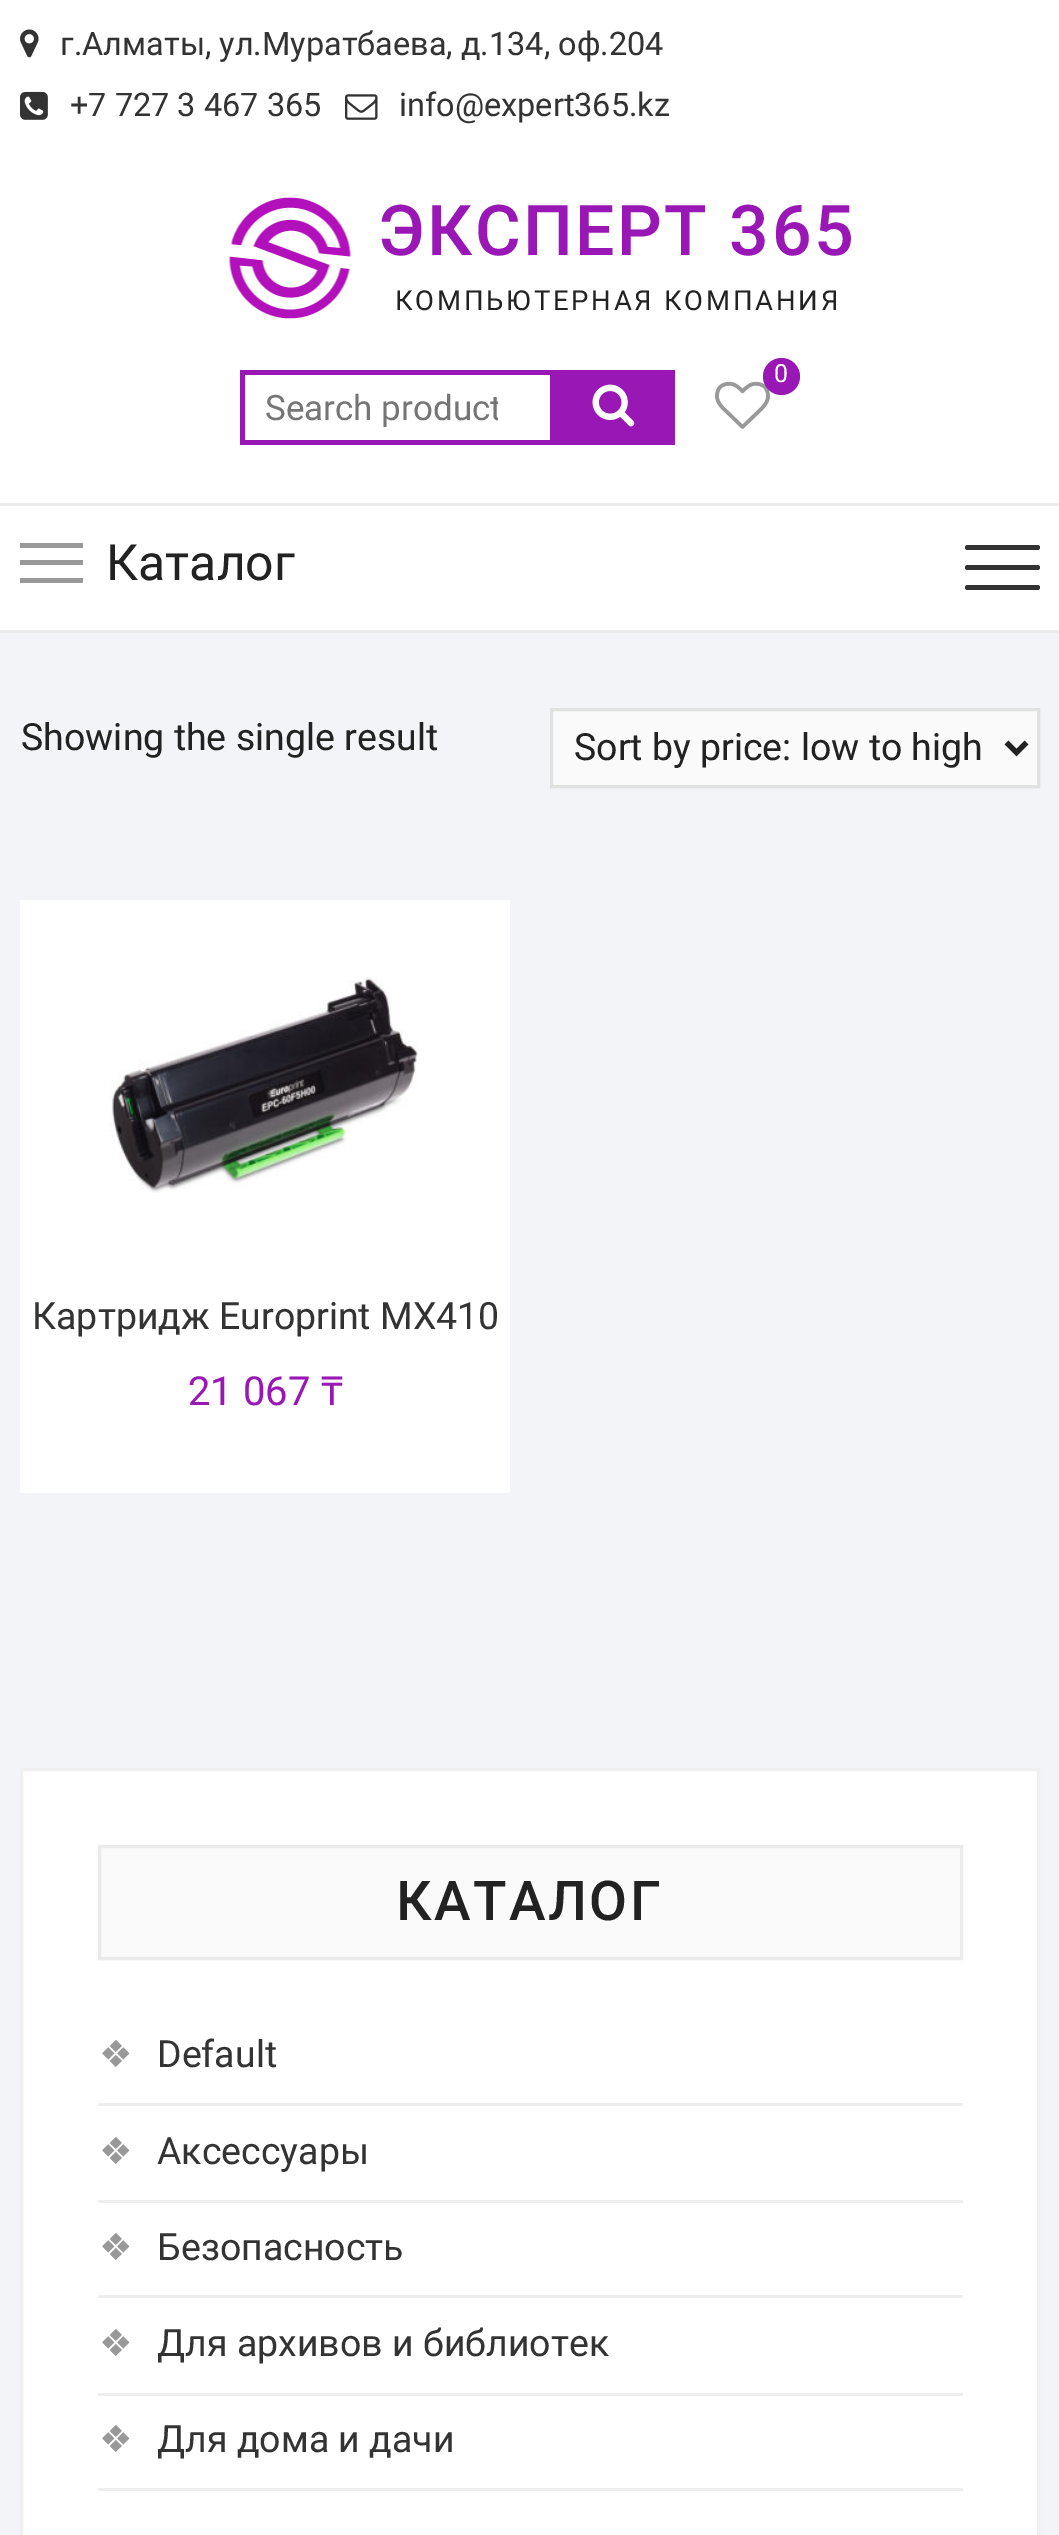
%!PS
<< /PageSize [1059 2535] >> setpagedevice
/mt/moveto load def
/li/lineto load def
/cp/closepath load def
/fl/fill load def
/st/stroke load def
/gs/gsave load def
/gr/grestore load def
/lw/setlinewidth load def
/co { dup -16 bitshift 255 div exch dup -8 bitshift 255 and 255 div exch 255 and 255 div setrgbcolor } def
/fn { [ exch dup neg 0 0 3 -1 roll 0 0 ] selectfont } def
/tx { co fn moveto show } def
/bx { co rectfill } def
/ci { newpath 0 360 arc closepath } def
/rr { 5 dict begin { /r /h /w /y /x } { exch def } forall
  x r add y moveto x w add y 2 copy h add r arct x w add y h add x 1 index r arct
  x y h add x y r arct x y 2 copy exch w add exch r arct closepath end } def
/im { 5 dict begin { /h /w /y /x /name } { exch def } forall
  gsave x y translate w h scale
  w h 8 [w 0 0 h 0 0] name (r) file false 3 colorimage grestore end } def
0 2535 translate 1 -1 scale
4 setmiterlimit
0 0 1059 2535 16#F3F4F8 bx
0 0 1059 630 16#FFFFFF bx
(media/1.raw) 20 29 19 29 im
(media/2.raw) 20 91 28 29 im
(media/3.raw) 345 94 33 26 im
(media/4.raw) 229 197 122 122 im
(media/5.raw) 715 381 55 48 im
16#9817B5 co
781.5 376.5 18.5 ci fl
240 370 313 5 16#9817B5 bx
240 440 313 5 16#9817B5 bx
240 370 5 75 16#9817B5 bx
550 370 125 75 16#9817B5 bx
(media/6.raw) 592 384 43 43 im
0 503 1059 3 16#EBEBEB bx
0 630 1059 3 16#EBEBEB bx
20 560 63 5 16#999999 bx
20 543 63 5 16#999999 bx
20 578 63 5 16#999999 bx
16#333333 co
965 565 75 5 2.5 rr fl
965 545 75 5 2.5 rr fl
965 585 75 5 2.5 rr fl
16#FAFAFA co
551.5 709.5 mt 1038.5 709.5 li 1038.5 786.5 li 551.5 786.5 li cp gs fl gr
16#E1E1E1 co
3 lw
st
16#222222 co
5 lw
1006.5 742.5 mt 1016.5 752.5 li 1026.5 742.5 li st
20 900 490 593 16#FFFFFF bx
(media/7.raw) 109 977 309 216 im
21.5 1769.5 mt 1038.5 1769.5 li 1038.5 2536.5 li 21.5 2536.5 li cp gs fl gr
16#F0F0F0 co
3 lw
st
16#FAFAFA co
99.5 1846.5 mt 961.5 1846.5 li 961.5 1958.5 li 99.5 1958.5 li cp gs fl gr
16#EBEBEB co
st
98 2103 865 3 16#EEEEEE bx
98 2200 865 3 16#EEEEEE bx
98 2295 865 3 16#EEEEEE bx
98 2393 865 3 16#EEEEEE bx
98 2488 865 3 16#EEEEEE bx
(г.Алматы, ул.Муратбаева, д.134, оф.204) 60 55 /Roboto-Regular 32.5 16#333333 tx
(+7 727 3 467 365) 70 116 /Roboto-Regular 32.5 16#333333 tx
(info@expert365.kz) 399 116 /Roboto-Regular 32.5 16#333333 tx
/Roboto-Medium 70 fn
16#9817B5 co
378 255 mt 2.5 0 (ЭКСПЕРТ 365) ashow
/Roboto-Regular 27.5 fn
16#222222 co
395 310 mt 2.75 0 (КОМПЬЮТЕРНАЯ КОМПАНИЯ) ashow
(0) 774 382 /Roboto-Regular 25 16#FFFFFF tx
gs
265 388 233 40 rectclip
(Search product) 265 420 /Roboto-Regular 35 16#757575 tx
gr
(Каталог) 106 580 /Roboto-Regular 50 16#222222 tx
(Showing the single result) 21 750 /Roboto-Regular 37.5 16#222222 tx
(Sort by price: low to high) 574 760 /Roboto-Regular 37.5 16#222222 tx
(Картридж Europrint MX410) 32 1329 /Roboto-Regular 37.5 16#333333 tx
(21 067) 188 1405 /Roboto-Regular 40 16#9817B5 tx
(₸) 321 1405 /NotoSans-Regular 40 16#9817B5 tx
/Roboto-Medium 55 fn
16#222222 co
396 1920 mt 2.5 0 (КАТАЛОГ) ashow
(❖) 99 2067 /DejaVuSans-Regular 37.5 16#999999 tx
(Default) 157 2067 /Roboto-Regular 37.5 16#333333 tx
(❖) 99 2164 /DejaVuSans-Regular 37.5 16#999999 tx
(Аксессуары) 157 2164 /Roboto-Regular 37.5 16#333333 tx
(❖) 99 2260 /DejaVuSans-Regular 37.5 16#999999 tx
(Безопасность) 157 2260 /Roboto-Regular 37.5 16#333333 tx
(❖) 99 2356 /DejaVuSans-Regular 37.5 16#999999 tx
(Для архивов и библиотек) 157 2356 /Roboto-Regular 37.5 16#333333 tx
(❖) 99 2452 /DejaVuSans-Regular 37.5 16#999999 tx
(Для дома и дачи) 157 2452 /Roboto-Regular 37.5 16#333333 tx
showpage
